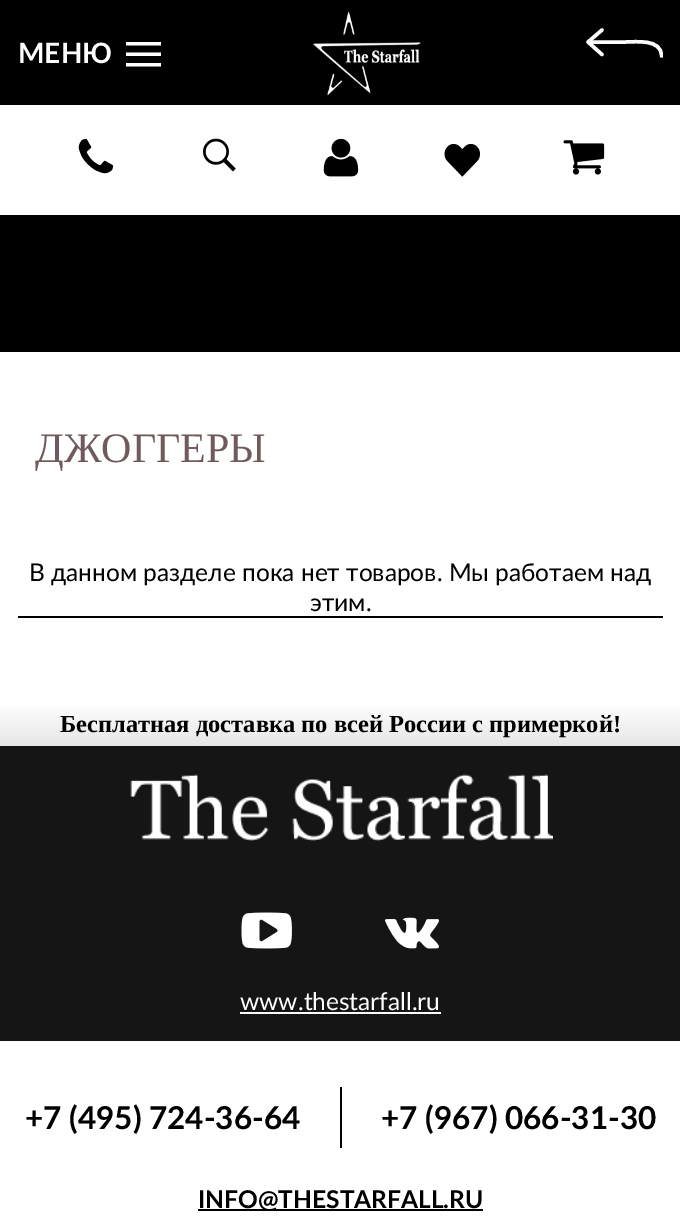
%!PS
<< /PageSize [680 1218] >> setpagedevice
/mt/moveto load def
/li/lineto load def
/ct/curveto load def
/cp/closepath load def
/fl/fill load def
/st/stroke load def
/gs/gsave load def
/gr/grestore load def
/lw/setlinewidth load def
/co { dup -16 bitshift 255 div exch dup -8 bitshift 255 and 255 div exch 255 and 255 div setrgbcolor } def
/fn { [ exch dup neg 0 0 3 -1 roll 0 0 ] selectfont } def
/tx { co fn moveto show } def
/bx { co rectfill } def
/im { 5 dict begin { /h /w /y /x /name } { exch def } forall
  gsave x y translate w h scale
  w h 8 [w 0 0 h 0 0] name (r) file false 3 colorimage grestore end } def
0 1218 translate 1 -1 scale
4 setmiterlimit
0 0 680 1218 16#FFFFFF bx
0 215 680 137 16#000000 bx
0 0 680 105 16#000000 bx
16#FFFFFF co
126 56 mt 126 52.5 li 161 52.5 li 161 56 li cp 126 45.5 mt 126 42 li 161 42 li 161 45.5 li cp 126 66.5 mt 126 63 li 161 63 li 161 66.5 li cp fl
(media/1.raw) 313 11 108 85 im
16#FDFDFD co
3.5 lw
1 setlinecap
1 setlinejoin
602 30 mt 588 42 li 602 54.5 li st
gs
586 28 77 32 rectclip
590 42 mt 625 42 li 636 42 661.5 38.5 661.5 56 ct st
gr
(media/2.raw) 78 138 36 36 im
(media/3.raw) 203 138 33 34 im
(media/4.raw) 323 138 36 39 im
(media/5.raw) 444 143 36 34 im
(media/6.raw) 563 140 42 35 im
18 616 645 2 16#000000 bx
gs 0 706 mt 680 706 li 680 746 li 0 746 li cp clip newpath
<< /ShadingType 2 /ColorSpace /DeviceRGB /Coords [340 702 340 746] /Extend [true true] /Function << /FunctionType 2 /Domain [0 1] /C0 [1 1 1] /C1 [.902 .902 .902] /N 1 >> >> shfill gr
0 746 680 295 16#151515 bx
(media/7.raw) 130 774 423 67 im
(media/8.raw) 241 912 51 37 im
(media/9.raw) 385 917 54 32 im
240 1012 201 2 16#FFFFFF bx
340 1087 2 61 16#000000 bx
198 1209 285 2 16#000000 bx
(МЕНЮ) 18 63 /Lato-Bold 28 16#FFFFFF tx
(ДЖОГГЕРЫ) 35 462 /LiberationSerif-Regular 42 16#715A5B tx
(В данном разделе пока нет товаров. Мы работаем над) 29 581 /Lato-Regular 24.5 16#000000 tx
(этим.) 310 611 /Lato-Regular 24.5 16#000000 tx
(Бесплатная доставка по всей России с примеркой!) 60 732 /LiberationSerif-Bold 24.5 16#000000 tx
(www.thestarfall.ru) 240 1010 /Lato-Regular 24.5 16#FFFFFF tx
(+7 \(495\) 724-36-64) 25 1129 /Lato-Bold 31.5 16#000000 tx
(+7 \(967\) 066-31-30) 381 1129 /Lato-Bold 31.5 16#000000 tx
(INFO@THESTARFALL.RU) 198 1208 /Lato-Bold 24.5 16#000000 tx
showpage
